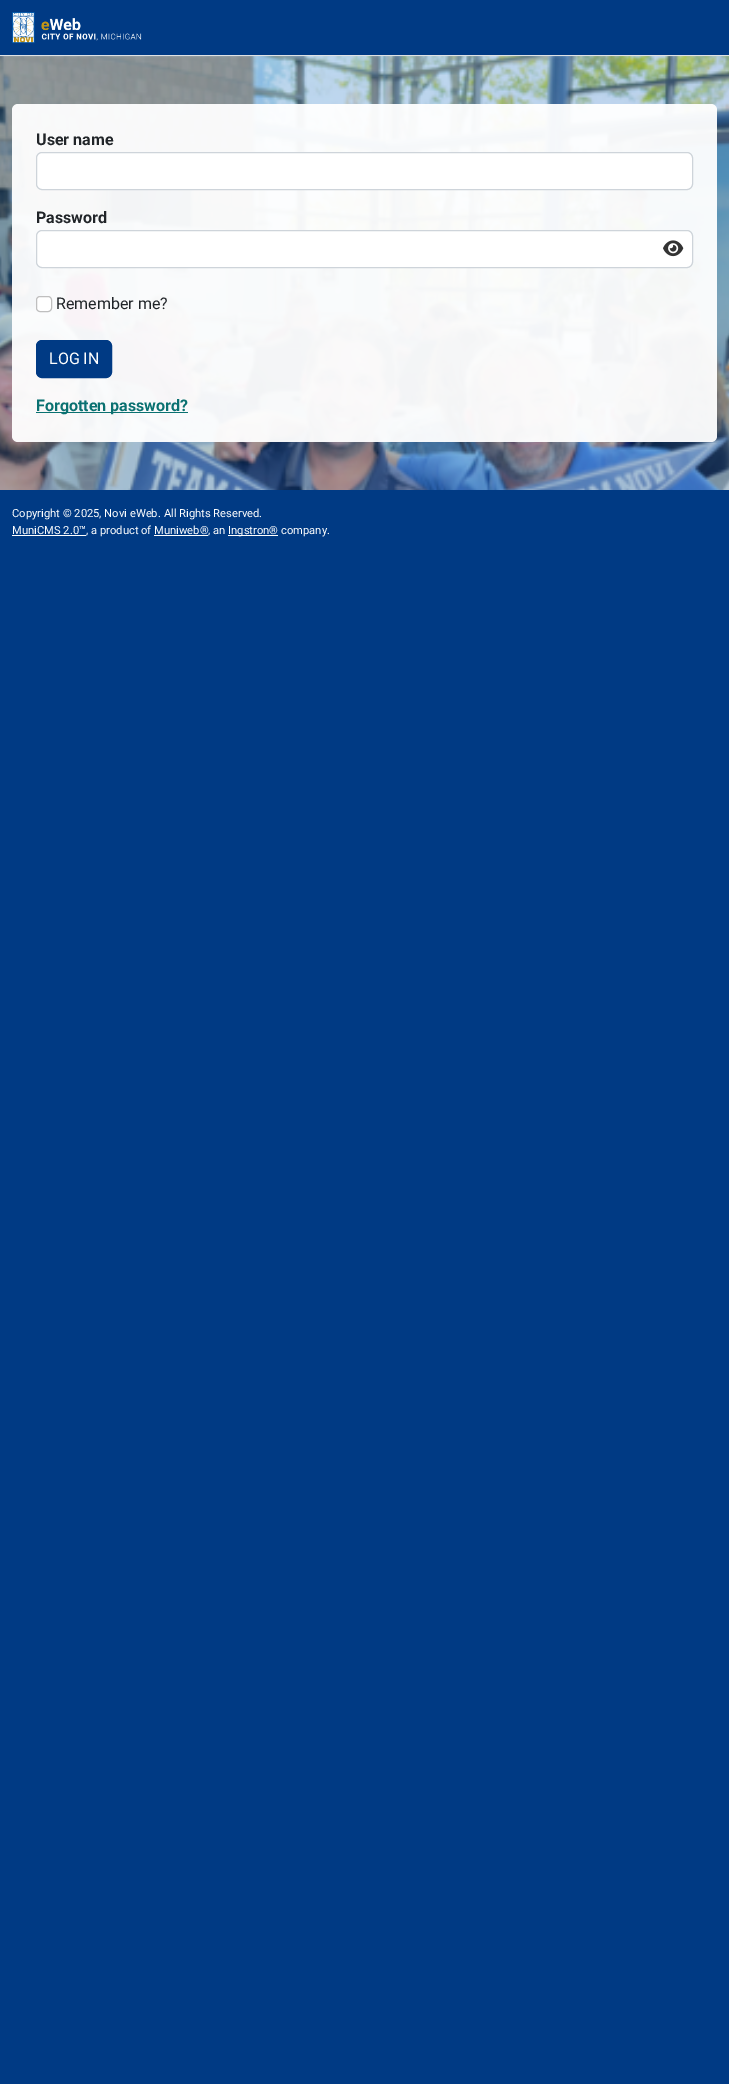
%!PS
<< /PageSize [729 2084] /PageUsesTransparency true >> setpagedevice
/fl/fill load def
/st/stroke load def
/gs/gsave load def
/gr/grestore load def
/co { dup -16 bitshift 255 div exch dup -8 bitshift 255 and 255 div exch 255 and 255 div setrgbcolor } def
/fn { [ exch dup neg 0 0 3 -1 roll 0 0 ] selectfont } def
/tx { co fn moveto show } def
/bx { co rectfill } def
/al { dup .setfillconstantalpha .setstrokeconstantalpha } def
/rr { 5 dict begin { /r /h /w /y /x } { exch def } forall
  x r add y moveto x w add y 2 copy h add r arct x w add y h add x 1 index r arct
  x y h add x y r arct x y 2 copy exch w add exch r arct closepath end } def
/im { 5 dict begin { /h /w /y /x /name } { exch def } forall
  gsave x y translate w h scale
  w h 8 [w 0 0 h 0 0] name (r) file false 3 colorimage grestore end } def
0 .pushpdf14devicefilter
0 2084 translate 1 -1 scale
4 setmiterlimit
0 0 729 2084 16#003A84 bx
0 55 729 1 16#DEE2E6 bx
(media/1.raw) 12 12 130 32 im
(media/2.raw) 0 56 729 434 im
0.95 al
16#FFFFFF co
12 104 705 338 6 rr fl
1 al
36.5 152.5 656 37 5.5 rr gs fl gr
16#CED4DA co
st
16#FFFFFF co
36.5 230.5 656 37 5.5 rr gs fl gr
16#CED4DA co
st
(media/3.raw) 663 240 21 17 im
16#FFFFFF co
36 296 16 16 4 rr fl
0.25 al
16#000000 co
36.5 296.5 15 15 3.5 rr st
1 al
16#003A84 co
36.5 340.5 75 37 5.5 rr gs fl gr
st
36 412 152 1 16#0A7171 bx
12 535 74 1 16#FFFFFF bx
228 535 50 1 16#FFFFFF bx
154 535 54 1 16#FFFFFF bx
(User name) 36 145 /Roboto-Bold 16 16#212529 tx
(Password) 36 223 /Roboto-Bold 16 16#212529 tx
(Remember me?) 56 309 /Roboto-Regular 16 16#212529 tx
(LOG IN) 49 364 /Roboto-Regular 16 16#FFFFFF tx
(Forgotten password?) 36 411 /Roboto-Bold 16 16#0A7171 tx
(Copyright © 2025, Novi eWeb. All Rights Reserved.) 12 517 /Roboto-Regular 11.2 16#FFFFFF tx
(MuniCMS 2.0™, a product of Muniweb®, an) 12 534 /Roboto-Regular 11.2 16#FFFFFF tx
(Ingstron® company.) 228 534 /Roboto-Regular 11.2 16#FFFFFF tx
.poppdf14devicefilter showpage
